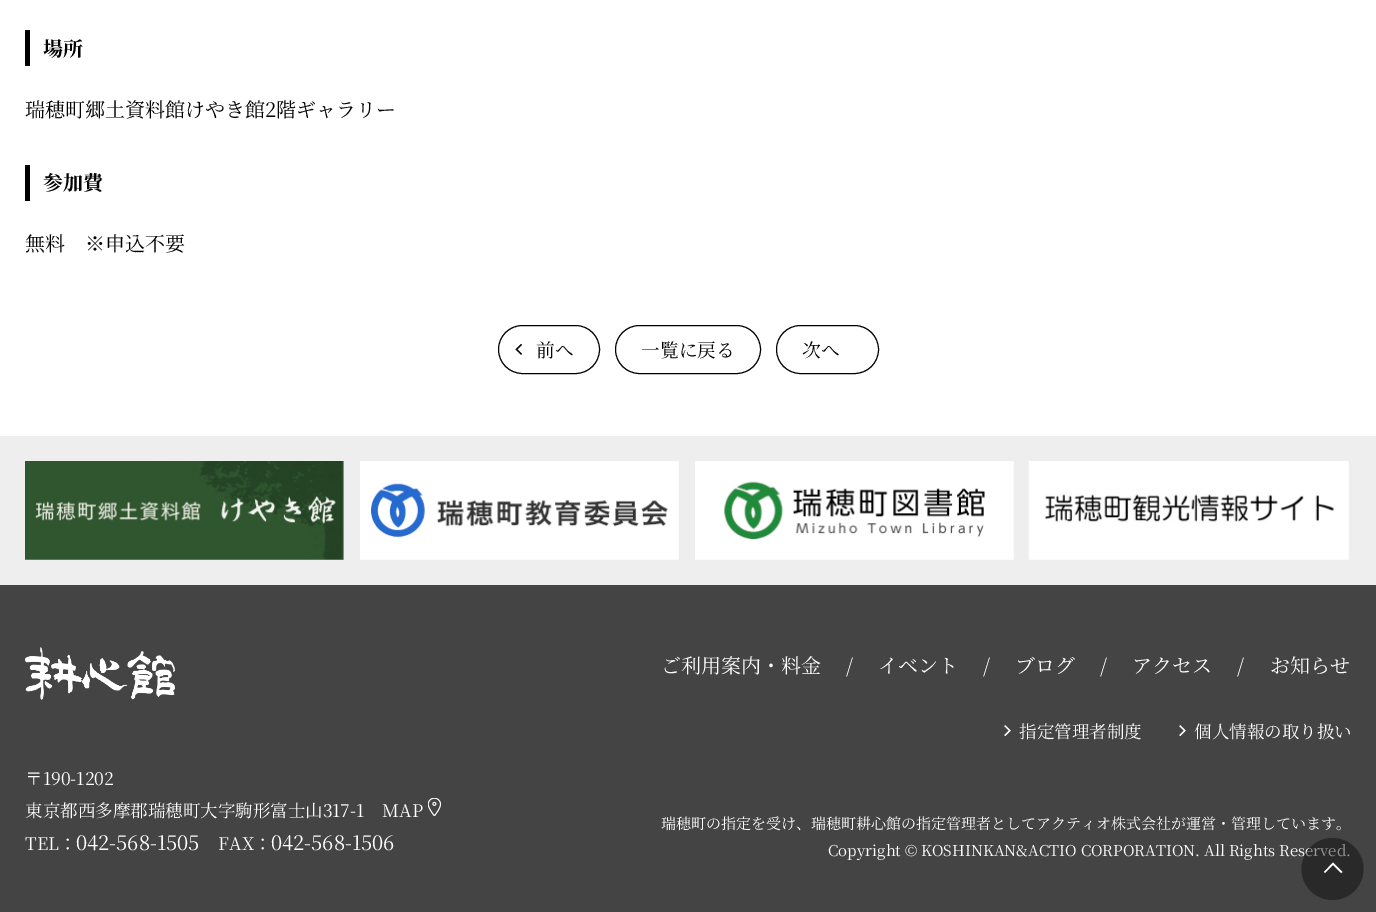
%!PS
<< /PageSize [1376 912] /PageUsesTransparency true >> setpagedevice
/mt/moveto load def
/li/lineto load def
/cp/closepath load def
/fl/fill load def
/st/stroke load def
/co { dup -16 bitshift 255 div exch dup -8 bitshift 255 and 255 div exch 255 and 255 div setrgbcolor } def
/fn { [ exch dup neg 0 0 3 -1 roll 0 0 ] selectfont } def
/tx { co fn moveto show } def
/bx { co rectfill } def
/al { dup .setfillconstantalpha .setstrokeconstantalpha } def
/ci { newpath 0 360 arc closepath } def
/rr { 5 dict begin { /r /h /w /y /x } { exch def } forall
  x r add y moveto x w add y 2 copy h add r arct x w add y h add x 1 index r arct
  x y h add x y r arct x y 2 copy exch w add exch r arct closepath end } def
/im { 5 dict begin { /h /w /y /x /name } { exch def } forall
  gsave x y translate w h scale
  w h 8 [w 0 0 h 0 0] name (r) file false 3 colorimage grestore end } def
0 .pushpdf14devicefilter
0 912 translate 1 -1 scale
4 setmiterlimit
0 0 1376 912 16#FFFFFF bx
25 30 5 36 16#000000 bx
25 165 5 36 16#000000 bx
(media/1.raw) 515 344 8 11 im
498.5 325.5 101 48 24 rr st
615.5 325.5 145 48 24 rr st
776.5 325.5 102 48 24 rr st
0 436 1376 149 16#EEEEEE bx
(media/2.raw) 25 461 319 99 im
(media/3.raw) 360 461 319 99 im
(media/4.raw) 695 461 319 99 im
(media/5.raw) 1028 461 321 99 im
0 585 1376 327 16#444444 bx
(media/6.raw) 25 647 150 53 im
(media/7.raw) 428 798 13 18 im
(media/8.raw) 1004 725 7 11 im
(media/8.raw) 1179 725 7 11 im
(場所) 43 56 /NotoSerifJP-Bold 20 16#000000 tx
(瑞穂町郷土資料館けやき館2階ギャラリー) 25 117 /NotoSerifJP-Regular 20 16#000000 tx
(参加費) 43 190 /NotoSerifJP-Bold 20 16#000000 tx
(無料　※申込不要) 25 251 /NotoSerifJP-Regular 20 16#000000 tx
(前へ) 536 357 /NotoSerifJP-Regular 18.75 16#000000 tx
(一覧に戻る) 641 357 /NotoSerifJP-Regular 18.75 16#000000 tx
(次へ) 802 357 /NotoSerifJP-Regular 18.75 16#000000 tx
(〒190-1202) 25 785 /NotoSerifJP-Regular 17.5 16#FFFFFF tx
(東京都西多摩郡瑞穂町大字駒形富士山317-1) 25 817 /NotoSerifJP-Regular 17.5 16#FFFFFF tx
(MAP) 382 817 /NotoSerifJP-Regular 17.5 16#FFFFFF tx
(TEL：) 25 850 /NotoSerifJP-Regular 17.5 16#FFFFFF tx
(042-568-1505) 76 850 /NotoSerifJP-Regular 20 16#FFFFFF tx
(FAX：) 218 850 /NotoSerifJP-Regular 17.5 16#FFFFFF tx
(042-568-1506) 271 850 /NotoSerifJP-Regular 20 16#FFFFFF tx
(ご利用案内・料金) 661 673 /NotoSerifJP-Regular 20 16#FFFFFF tx
(/) 846 673 /NotoSerifJP-Regular 20 16#FFFFFF tx
(イベント) 878 673 /NotoSerifJP-Regular 20 16#FFFFFF tx
(/) 983 673 /NotoSerifJP-Regular 20 16#FFFFFF tx
(ブログ) 1015 673 /NotoSerifJP-Regular 20 16#FFFFFF tx
(/) 1100 673 /NotoSerifJP-Regular 20 16#FFFFFF tx
(アクセス) 1132 673 /NotoSerifJP-Regular 20 16#FFFFFF tx
(/) 1237 673 /NotoSerifJP-Regular 20 16#FFFFFF tx
(お知らせ) 1270 673 /NotoSerifJP-Regular 20 16#FFFFFF tx
(指定管理者制度) 1019 738 /NotoSerifJP-Regular 17.5 16#FFFFFF tx
(個人情報の取り扱い) 1194 738 /NotoSerifJP-Regular 17.5 16#FFFFFF tx
(瑞穂町の指定を受け、瑞穂町耕心館の指定管理者としてアクティオ株式会社が運営・管理しています。) 661 829 /NotoSerifJP-Regular 15 16#FFFFFF tx
(Copyright © KOSHINKAN&ACTIO CORPORATION. All Rights Reserved.) 828 856 /NotoSerifJP-Regular 15 16#FFFFFF tx
0.4 al
16#000000 co
1332.5 869 31 ci fl
1 al
16#FFFFFF co
1333 865 mt 1325 873 li 1324 872 li 1333 862.5 li 1342.5 872 li 1341 873 li cp eofill
.poppdf14devicefilter showpage
